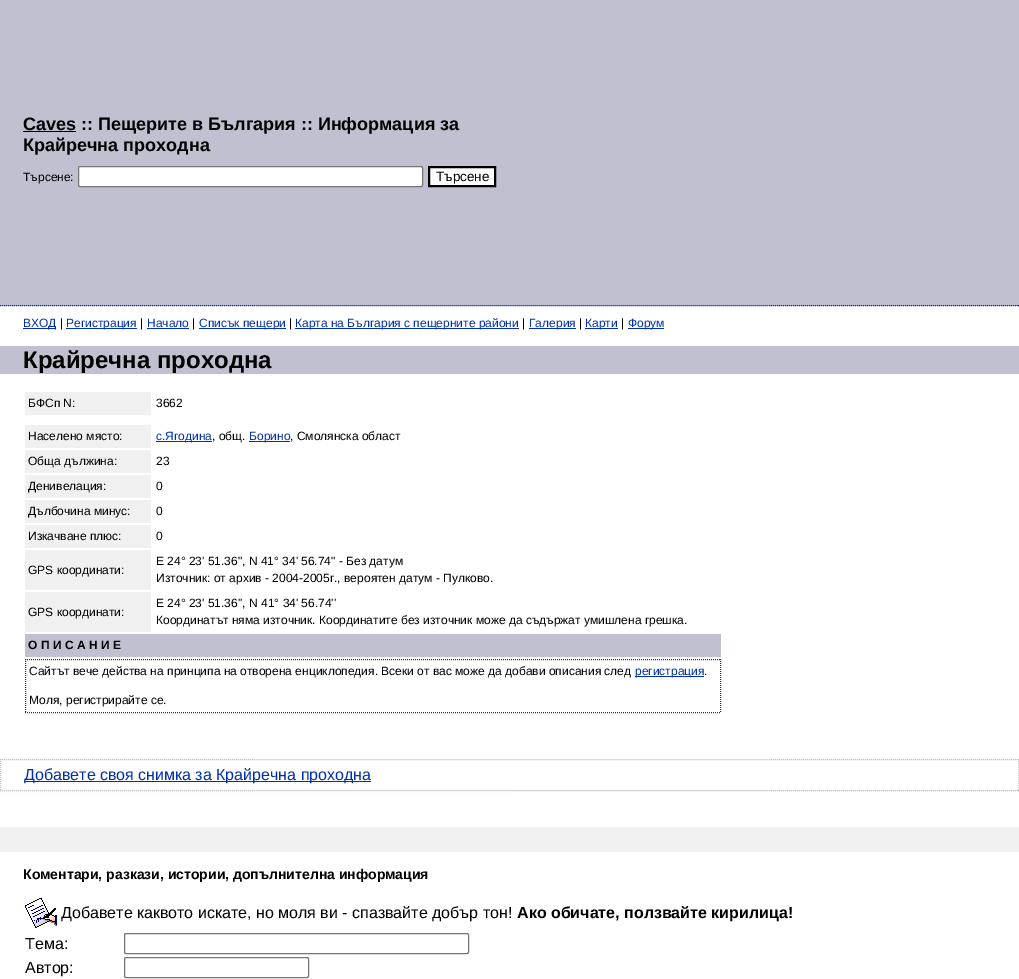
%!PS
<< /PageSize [1019 979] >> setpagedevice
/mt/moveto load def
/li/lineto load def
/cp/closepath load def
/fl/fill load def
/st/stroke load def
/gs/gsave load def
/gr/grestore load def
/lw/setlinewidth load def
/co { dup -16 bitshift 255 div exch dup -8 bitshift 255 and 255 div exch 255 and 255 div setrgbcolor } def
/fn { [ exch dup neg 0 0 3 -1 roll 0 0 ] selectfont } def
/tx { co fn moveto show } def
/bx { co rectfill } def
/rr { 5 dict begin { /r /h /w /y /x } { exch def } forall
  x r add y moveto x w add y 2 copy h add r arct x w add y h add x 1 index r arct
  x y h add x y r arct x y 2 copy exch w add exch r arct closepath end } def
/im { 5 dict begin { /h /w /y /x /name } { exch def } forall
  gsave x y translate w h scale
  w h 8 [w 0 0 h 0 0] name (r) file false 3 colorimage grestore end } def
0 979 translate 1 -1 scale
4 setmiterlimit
0 0 1019 979 16#FFFFFF bx
0 0 1019 306 16#C0C0D0 bx
16#0030B0 co
[1 1] 0 setdash
0 305.5 mt 1019 305.5 li st
23 131 53 1 16#000000 bx
16#FFFFFF co
78.5 166.5 344 20 1.5 rr gs fl gr
16#767676 co
[] 0 setdash
st
16#FFFFFF co
429 167 mt 495 167 li 495 186 li 429 186 li cp gs fl gr
16#000000 co
2 lw
st
23 328 33 1 16#0030B0 bx
66 328 71 1 16#0030B0 bx
147 328 42 1 16#0030B0 bx
199 328 87 1 16#0030B0 bx
295 328 224 1 16#0030B0 bx
529 328 47 1 16#0030B0 bx
585 328 33 1 16#0030B0 bx
628 328 36 1 16#0030B0 bx
0 346 1019 28 16#C0C0D0 bx
25 392 126 23 16#F0F0F0 bx
25 425 126 23 16#F0F0F0 bx
156 441 56 1 16#0030B0 bx
249 441 41 1 16#0030B0 bx
25 450 126 23 16#F0F0F0 bx
25 475 126 23 16#F0F0F0 bx
25 500 126 23 16#F0F0F0 bx
25 525 126 23 16#F0F0F0 bx
25 550 126 40 16#F0F0F0 bx
25 592 126 40 16#F0F0F0 bx
25 634 696 23 16#C0C0D0 bx
16#0030B0 co
1 lw
[1 1] 0 setdash
25 659.5 mt 721 659.5 li st
720.5 659 mt 720.5 713 li st
25 712.5 mt 721 712.5 li st
25.5 659 mt 25.5 713 li st
635 676 69 1 16#0030B0 bx
16#C0C0D0 co
0 759.5 mt 1019 759.5 li st
1018.5 759 mt 1018.5 791 li st
0 790.5 mt 1019 790.5 li st
.5 759 mt .5 791 li st
24 781 347 1 16#0030B0 bx
0 827 1019 25 16#F0F0F0 bx
(media/1.raw) 25 898 32 30 im
16#767676 co
[] 0 setdash
124.5 933.5 344 20 1.5 rr st
124.5 957.5 184 20 1.5 rr st
(Caves :: Пещерите в България :: Информация за) 23 130 /LiberationSans-Bold 18 16#000000 tx
(Крайречна проходна) 23 151 /LiberationSans-Bold 18 16#000000 tx
(Търсене:) 23 181 /LiberationSans-Regular 12 16#000000 tx
(Търсене) 436 181 /LiberationSans-Regular 13.5 16#000000 tx
(ВХОД) 23 327 /LiberationSans-Regular 12 16#0030B0 tx
(|) 60 327 /LiberationSans-Regular 12 16#000000 tx
(Регистрация) 66 327 /LiberationSans-Regular 12 16#0030B0 tx
(|) 140 327 /LiberationSans-Regular 12 16#000000 tx
(Начало) 147 327 /LiberationSans-Regular 12 16#0030B0 tx
(|) 192 327 /LiberationSans-Regular 12 16#000000 tx
(Списък пещери) 199 327 /LiberationSans-Regular 12 16#0030B0 tx
(|) 289 327 /LiberationSans-Regular 12 16#000000 tx
(Карта на България с пещерните райони) 295 327 /LiberationSans-Regular 12 16#0030B0 tx
(|) 522 327 /LiberationSans-Regular 12 16#000000 tx
(Галерия) 529 327 /LiberationSans-Regular 12 16#0030B0 tx
(|) 579 327 /LiberationSans-Regular 12 16#000000 tx
(Карти) 585 327 /LiberationSans-Regular 12 16#0030B0 tx
(|) 621 327 /LiberationSans-Regular 12 16#000000 tx
(Форум) 628 327 /LiberationSans-Regular 12 16#0030B0 tx
(Крайречна проходна) 23 368 /LiberationSans-Bold 24 16#000000 tx
(БФСп N:) 28 407 /LiberationSans-Regular 12 16#000000 tx
(3662) 156 407 /LiberationSans-Regular 12 16#000000 tx
(Населено място:) 28 440 /LiberationSans-Regular 12 16#000000 tx
(с.Ягодина) 156 440 /LiberationSans-Regular 12 16#0030B0 tx
(, общ.) 212 440 /LiberationSans-Regular 12 16#000000 tx
(Борино) 249 440 /LiberationSans-Regular 12 16#0030B0 tx
(, Смолянска област) 290 440 /LiberationSans-Regular 12 16#000000 tx
(Обща дължина:) 28 465 /LiberationSans-Regular 12 16#000000 tx
(23) 156 465 /LiberationSans-Regular 12 16#000000 tx
(Денивелация:) 28 490 /LiberationSans-Regular 12 16#000000 tx
(0) 156 490 /LiberationSans-Regular 12 16#000000 tx
(Дълбочина минус:) 28 515 /LiberationSans-Regular 12 16#000000 tx
(0) 156 515 /LiberationSans-Regular 12 16#000000 tx
(Изкачване плюс:) 28 540 /LiberationSans-Regular 12 16#000000 tx
(0) 156 540 /LiberationSans-Regular 12 16#000000 tx
(GPS координати:) 28 574 /LiberationSans-Regular 12 16#000000 tx
(E 24° 23' 51.36", N 41° 34' 56.74" - Без датум) 156 565 /LiberationSans-Regular 12 16#000000 tx
(Източник: от архив - 2004-2005г., вероятен датум - Пулково.) 156 582 /LiberationSans-Regular 12 16#000000 tx
(GPS координати:) 28 616 /LiberationSans-Regular 12 16#000000 tx
(E 24° 23' 51.36'', N 41° 34' 56.74'') 156 607 /LiberationSans-Regular 12 16#000000 tx
(Координатът няма източник. Координатите без източник може да съдържат умишлена грешка.) 156 624 /LiberationSans-Regular 12 16#000000 tx
(О П И С А Н И Е) 28 649 /LiberationSans-Bold 12 16#000000 tx
(Сайтът вече действа на принципа на отворена енциклопедия. Всеки от вас може да добави описания след) 29 675 /LiberationSans-Regular 12 16#000000 tx
(регистрация) 635 675 /LiberationSans-Regular 12 16#0030B0 tx
(.) 704 675 /LiberationSans-Regular 12 16#000000 tx
(Моля, регистрирайте се.) 29 704 /LiberationSans-Regular 12 16#000000 tx
(Добавете своя снимка за Крайречна проходна) 24 780 /LiberationSans-Regular 16 16#0030B0 tx
(Коментари, разкази, истории, допълнителна информация) 23 879 /LiberationSans-Bold 14 16#000000 tx
(Добавете каквото искате, но моля ви - спазвайте добър тон!) 61 918 /LiberationSans-Regular 16 16#000000 tx
(Ако обичате, ползвайте кирилица!) 517 918 /LiberationSans-Bold 16 16#000000 tx
(Тема:) 25 949 /LiberationSans-Regular 16 16#000000 tx
(Автор:) 25 973 /LiberationSans-Regular 16 16#000000 tx
showpage
